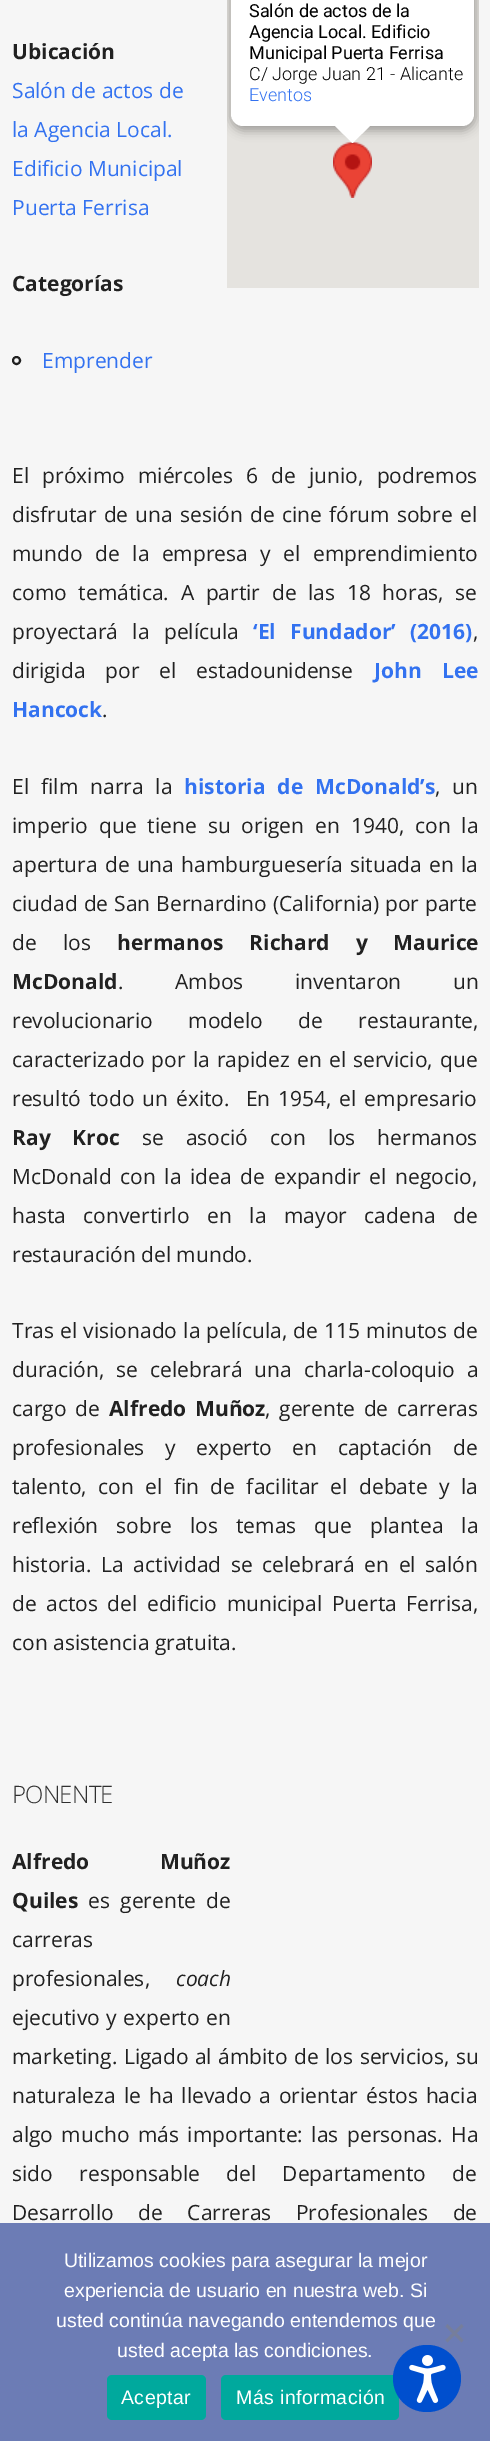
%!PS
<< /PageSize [490 2441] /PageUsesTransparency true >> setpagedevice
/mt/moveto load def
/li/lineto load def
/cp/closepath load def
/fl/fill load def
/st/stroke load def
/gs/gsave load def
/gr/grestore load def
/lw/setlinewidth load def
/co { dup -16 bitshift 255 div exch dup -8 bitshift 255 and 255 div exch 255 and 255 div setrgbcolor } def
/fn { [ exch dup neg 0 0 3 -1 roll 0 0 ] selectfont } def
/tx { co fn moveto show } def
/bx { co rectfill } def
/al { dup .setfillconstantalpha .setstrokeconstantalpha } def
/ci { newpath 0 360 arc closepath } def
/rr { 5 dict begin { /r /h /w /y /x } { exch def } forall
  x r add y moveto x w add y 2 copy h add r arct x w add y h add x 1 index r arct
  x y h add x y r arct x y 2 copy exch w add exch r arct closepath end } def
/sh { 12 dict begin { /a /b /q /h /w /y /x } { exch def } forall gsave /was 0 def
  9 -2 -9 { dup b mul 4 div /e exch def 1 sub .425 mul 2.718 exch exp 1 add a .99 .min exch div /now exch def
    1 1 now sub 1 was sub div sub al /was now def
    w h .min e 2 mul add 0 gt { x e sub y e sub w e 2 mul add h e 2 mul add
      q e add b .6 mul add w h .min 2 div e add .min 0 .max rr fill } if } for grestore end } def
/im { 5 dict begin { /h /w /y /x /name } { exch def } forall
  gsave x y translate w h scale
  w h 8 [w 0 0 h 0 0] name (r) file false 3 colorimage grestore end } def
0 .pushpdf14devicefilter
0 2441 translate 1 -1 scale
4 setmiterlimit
0 0 490 2441 16#F6F6F6 bx
227 0 252 288 16#E5E3DF bx
(media/1.raw) 333 142 39 56 im
gs
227 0 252 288 rectclip
16#000000 co
230 -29 246 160 14 5 .3 sh
gr
16#FFFFFF co
231 -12 243 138 12 rr fl
335 125 mt 335 126 li 352.5 143 li 371 125 li cp fl
16#212121 co
2 lw
16.5 360.5 3.5 ci st
0 2223 490 218 16#6C7CB5 bx
16#767E9B co
461.5 2324 mt 463.5 2326.5 li 447.5 2342.5 li 445.5 2340 li cp fl
445.5 2326.5 mt 447.5 2324 li 463.5 2340 li 461.5 2342.5 li cp fl
16#00A99D co
107 2375 99 45 5 rr fl
221 2375 178 45 5 rr fl
16#004FCE co
393 2345 68 67 33.5 rr fl
(media/2.raw) 409 2355 37 48 im
(Ubicación) 12 59 /OpenSans-Bold 21 16#212121 tx
(Salón de actos de) 12 98 /OpenSans-Regular 21 16#3372F0 tx
(la Agencia Local.) 12 137 /OpenSans-Regular 21 16#3372F0 tx
(Edificio Municipal) 12 176 /OpenSans-Regular 21 16#3372F0 tx
(Puerta Ferrisa) 12 215 /OpenSans-Regular 21 16#3372F0 tx
(Salón de actos de la) 249 17 /Roboto-Regular 18 16#000000 tx
(Agencia Local. Edificio) 249 38 /Roboto-Regular 18 16#000000 tx
(Municipal Puerta Ferrisa) 249 59 /Roboto-Regular 18 16#000000 tx
(C/ Jorge Juan 21 - Alicante) 249 80 /Roboto-Light 18 16#000000 tx
(Eventos) 249 101 /Roboto-Light 18 16#3372F0 tx
(Categorías) 12 291 /OpenSans-Bold 21 16#212121 tx
(Emprender) 42 368 /OpenSans-Regular 21 16#3372F0 tx
16#212121 co
12 483 mt 7.75 0 32 (El próximo miércoles 6 de junio, podremos) widthshow
12 522 mt 1.75 0 32 (disfrutar de una sesión de cine fórum sobre el) widthshow
12 561 mt 7 0 32 (mundo de la empresa y el emprendimiento) widthshow
12 600 mt 6.25 0 32 (como temática. A partir de las 18 horas, se) widthshow
12 639 mt 9 0 32 (proyectará la película) widthshow
/OpenSans-Bold 21 fn
16#3372F0 co
253 639 mt 9 0 32 (‘El Fundador’ \(2016\)) widthshow
(,) 473 639 /OpenSans-Regular 21 16#212121 tx
12 678 mt 14.5 0 32 (dirigida por el estadounidense) widthshow
/OpenSans-Bold 21 fn
16#3372F0 co
374 678 mt 15 0 32 (John Lee) widthshow
(Hancock) 12 717 /OpenSans-Bold 21 16#3372F0 tx
(.) 102 717 /OpenSans-Regular 21 16#212121 tx
12 794 mt 6.5 0 32 (El film narra la) widthshow
/OpenSans-Bold 21 fn
16#3372F0 co
184 794 mt 6.5 0 32 (historia de McDonald’s) widthshow
/OpenSans-Regular 21 fn
16#212121 co
435 794 mt 6.5 0 32 (, un) widthshow
12 833 mt 5.5 0 32 (imperio que tiene su origen en 1940, con la) widthshow
12 872 mt 1.75 0 32 (apertura de una hamburguesería situada en la) widthshow
12 911 mt .5 0 32 (ciudad de San Bernardino \(California\) por parte) widthshow
12 950 mt 20.5 0 32 (de los) widthshow
/OpenSans-Bold 21 fn
117 950 mt 20.5 0 32 (hermanos Richard y Maurice) widthshow
(McDonald) 12 989 /OpenSans-Bold 21 16#212121 tx
/OpenSans-Regular 21 fn
118 989 mt 46 0 32 (. Ambos inventaron un) widthshow
12 1028 mt 30 0 32 (revolucionario modelo de restaurante,) widthshow
12 1067 mt 1.75 0 32 (caracterizado por la rapidez en el servicio, que) widthshow
12 1106 mt 2.5 0 32 (resultó todo un éxito.  En 1954, el empresario) widthshow
/OpenSans-Bold 21 fn
12 1145 mt 16.5 0 32 (Ray Kroc) widthshow
/OpenSans-Regular 21 fn
142 1145 mt 16.5 0 32 (se asoció con los hermanos) widthshow
12 1184 mt 3.25 0 32 (McDonald con la idea de expandir el negocio,) widthshow
12 1223 mt 12.25 0 32 (hasta convertirlo en la mayor cadena de) widthshow
(restauración del mundo.) 12 1262 /OpenSans-Regular 21 16#212121 tx
12 1338 mt .75 0 32 (Tras el visionado la película, de 115 minutos de) widthshow
12 1377 mt 6.5 0 32 (duración, se celebrará una charla-coloquio a) widthshow
12 1416 mt 3.25 0 32 (cargo de) widthshow
/OpenSans-Bold 21 fn
109 1416 mt 3.25 0 32 (Alfredo Muñoz) widthshow
/OpenSans-Regular 21 fn
265 1416 mt 3.25 0 32 (, gerente de carreras) widthshow
12 1455 mt 15 0 32 (profesionales y experto en captación de) widthshow
12 1494 mt 6 0 32 (talento, con el fin de facilitar el debate y la) widthshow
12 1533 mt 12.5 0 32 (reflexión sobre los temas que plantea la) widthshow
12 1572 mt 4.25 0 32 (historia. La actividad se celebrará en el salón) widthshow
12 1611 mt 4 0 32 (de actos del edificio municipal Puerta Ferrisa,) widthshow
(con asistencia gratuita.) 12 1650 /OpenSans-Regular 21 16#212121 tx
/OpenSans-Light 24 fn
16#303030 co
12 1803 mt -.75 0 (PONENTE) ashow
/OpenSans-Bold 21 fn
16#212121 co
12 1869 mt 65 0 32 (Alfredo Muñoz) widthshow
(Quiles) 12 1908 /OpenSans-Bold 21 16#212121 tx
/OpenSans-Regular 21 fn
88 1908 mt 5 0 32 (es gerente de) widthshow
(carreras) 12 1947 /OpenSans-Regular 21 16#212121 tx
(profesionales,) 12 1986 /OpenSans-Regular 21 16#212121 tx
(coach) 176 1986 /OpenSans-Italic 21 16#212121 tx
/OpenSans-Regular 21 fn
12 2025 mt 1 0 32 (ejecutivo y experto en) widthshow
12 2064 mt 1 0 32 (marketing. Ligado al ámbito de los servicios, su) widthshow
12 2103 mt 2.5 0 32 (naturaleza le ha llevado a orientar éstos hacia) widthshow
12 2142 mt 3 0 32 (algo mucho más importante: las personas. Ha) widthshow
12 2181 mt 21 0 32 (sido responsable del Departamento de) widthshow
12 2220 mt 19 0 32 (Desarrollo de Carreras Profesionales de) widthshow
(Utilizamos cookies para asegurar la mejor) 64 2267 /LiberationSans-Regular 19.5 16#FFFFFF tx
(experiencia de usuario en nuestra web. Si) 64 2297 /LiberationSans-Regular 19.5 16#FFFFFF tx
(usted continúa navegando entendemos que) 56 2327 /LiberationSans-Regular 19.5 16#FFFFFF tx
(usted acepta las condiciones.) 117 2357 /LiberationSans-Regular 19.5 16#FFFFFF tx
121 2404 mt .4 0 (Aceptar) ashow
236 2404 mt .4 0 (Más información) ashow
.poppdf14devicefilter showpage
